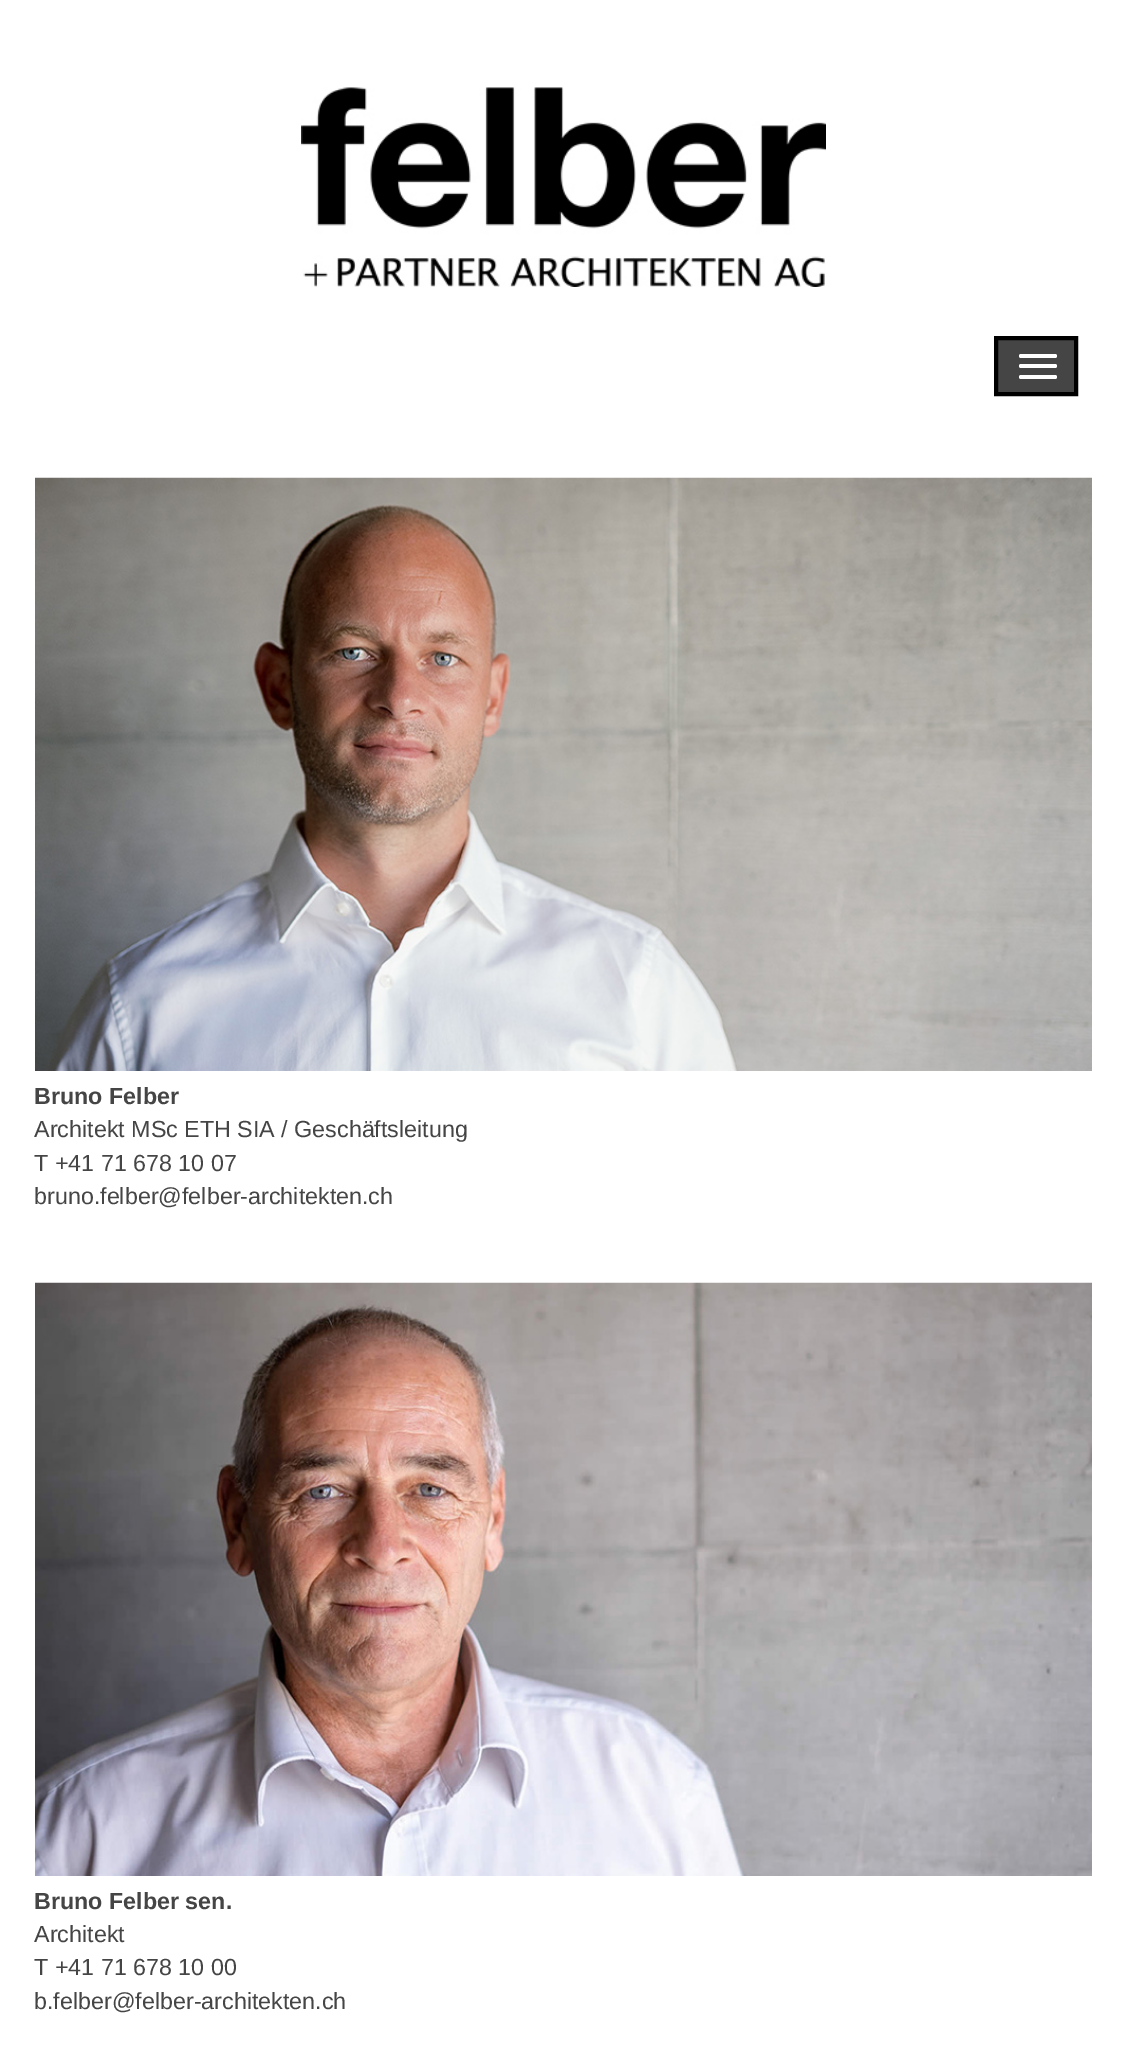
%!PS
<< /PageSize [1126 2048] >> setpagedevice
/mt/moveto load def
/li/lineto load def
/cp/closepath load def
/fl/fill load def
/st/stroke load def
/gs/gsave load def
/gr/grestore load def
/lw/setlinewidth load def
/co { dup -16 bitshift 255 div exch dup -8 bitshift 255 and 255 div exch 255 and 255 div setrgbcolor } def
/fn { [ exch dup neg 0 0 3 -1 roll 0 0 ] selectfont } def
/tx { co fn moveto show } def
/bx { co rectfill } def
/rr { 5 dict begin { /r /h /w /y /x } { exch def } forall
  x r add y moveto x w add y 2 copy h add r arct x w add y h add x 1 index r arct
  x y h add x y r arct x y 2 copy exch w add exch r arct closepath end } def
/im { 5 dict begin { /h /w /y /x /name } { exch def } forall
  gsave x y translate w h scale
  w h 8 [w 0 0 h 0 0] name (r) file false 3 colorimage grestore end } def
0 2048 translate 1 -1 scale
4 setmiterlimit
0 0 1126 2048 16#FFFFFF bx
(media/1.raw) 301 87 525 200 im
16#454545 co
996 338 mt 1076 338 li 1076 394 li 996 394 li cp gs fl gr
16#000000 co
4 lw
st
16#FFFFFF co
1019 354 38 4 2 rr fl
1019 364 38 4 2 rr fl
1019 375 38 4 2 rr fl
(media/2.raw) 35 477 1057 594 im
(media/3.raw) 35 1282 1057 594 im
(Bruno Felber) 34 1104 /LiberationSans-Bold 23.3 16#454545 tx
(Architekt MSc ETH SIA / Geschäftsleitung) 34 1137 /LiberationSans-Regular 23.3 16#454545 tx
(T +41 71 678 10 07) 34 1171 /LiberationSans-Regular 23.3 16#454545 tx
(bruno.felber@felber-architekten.ch) 34 1204 /LiberationSans-Regular 23.3 16#454545 tx
(Bruno Felber sen.) 34 1909 /LiberationSans-Bold 23.3 16#454545 tx
(Architekt) 34 1942 /LiberationSans-Regular 23.3 16#454545 tx
(T +41 71 678 10 00) 34 1975 /LiberationSans-Regular 23.3 16#454545 tx
(b.felber@felber-architekten.ch) 34 2009 /LiberationSans-Regular 23.3 16#454545 tx
showpage
